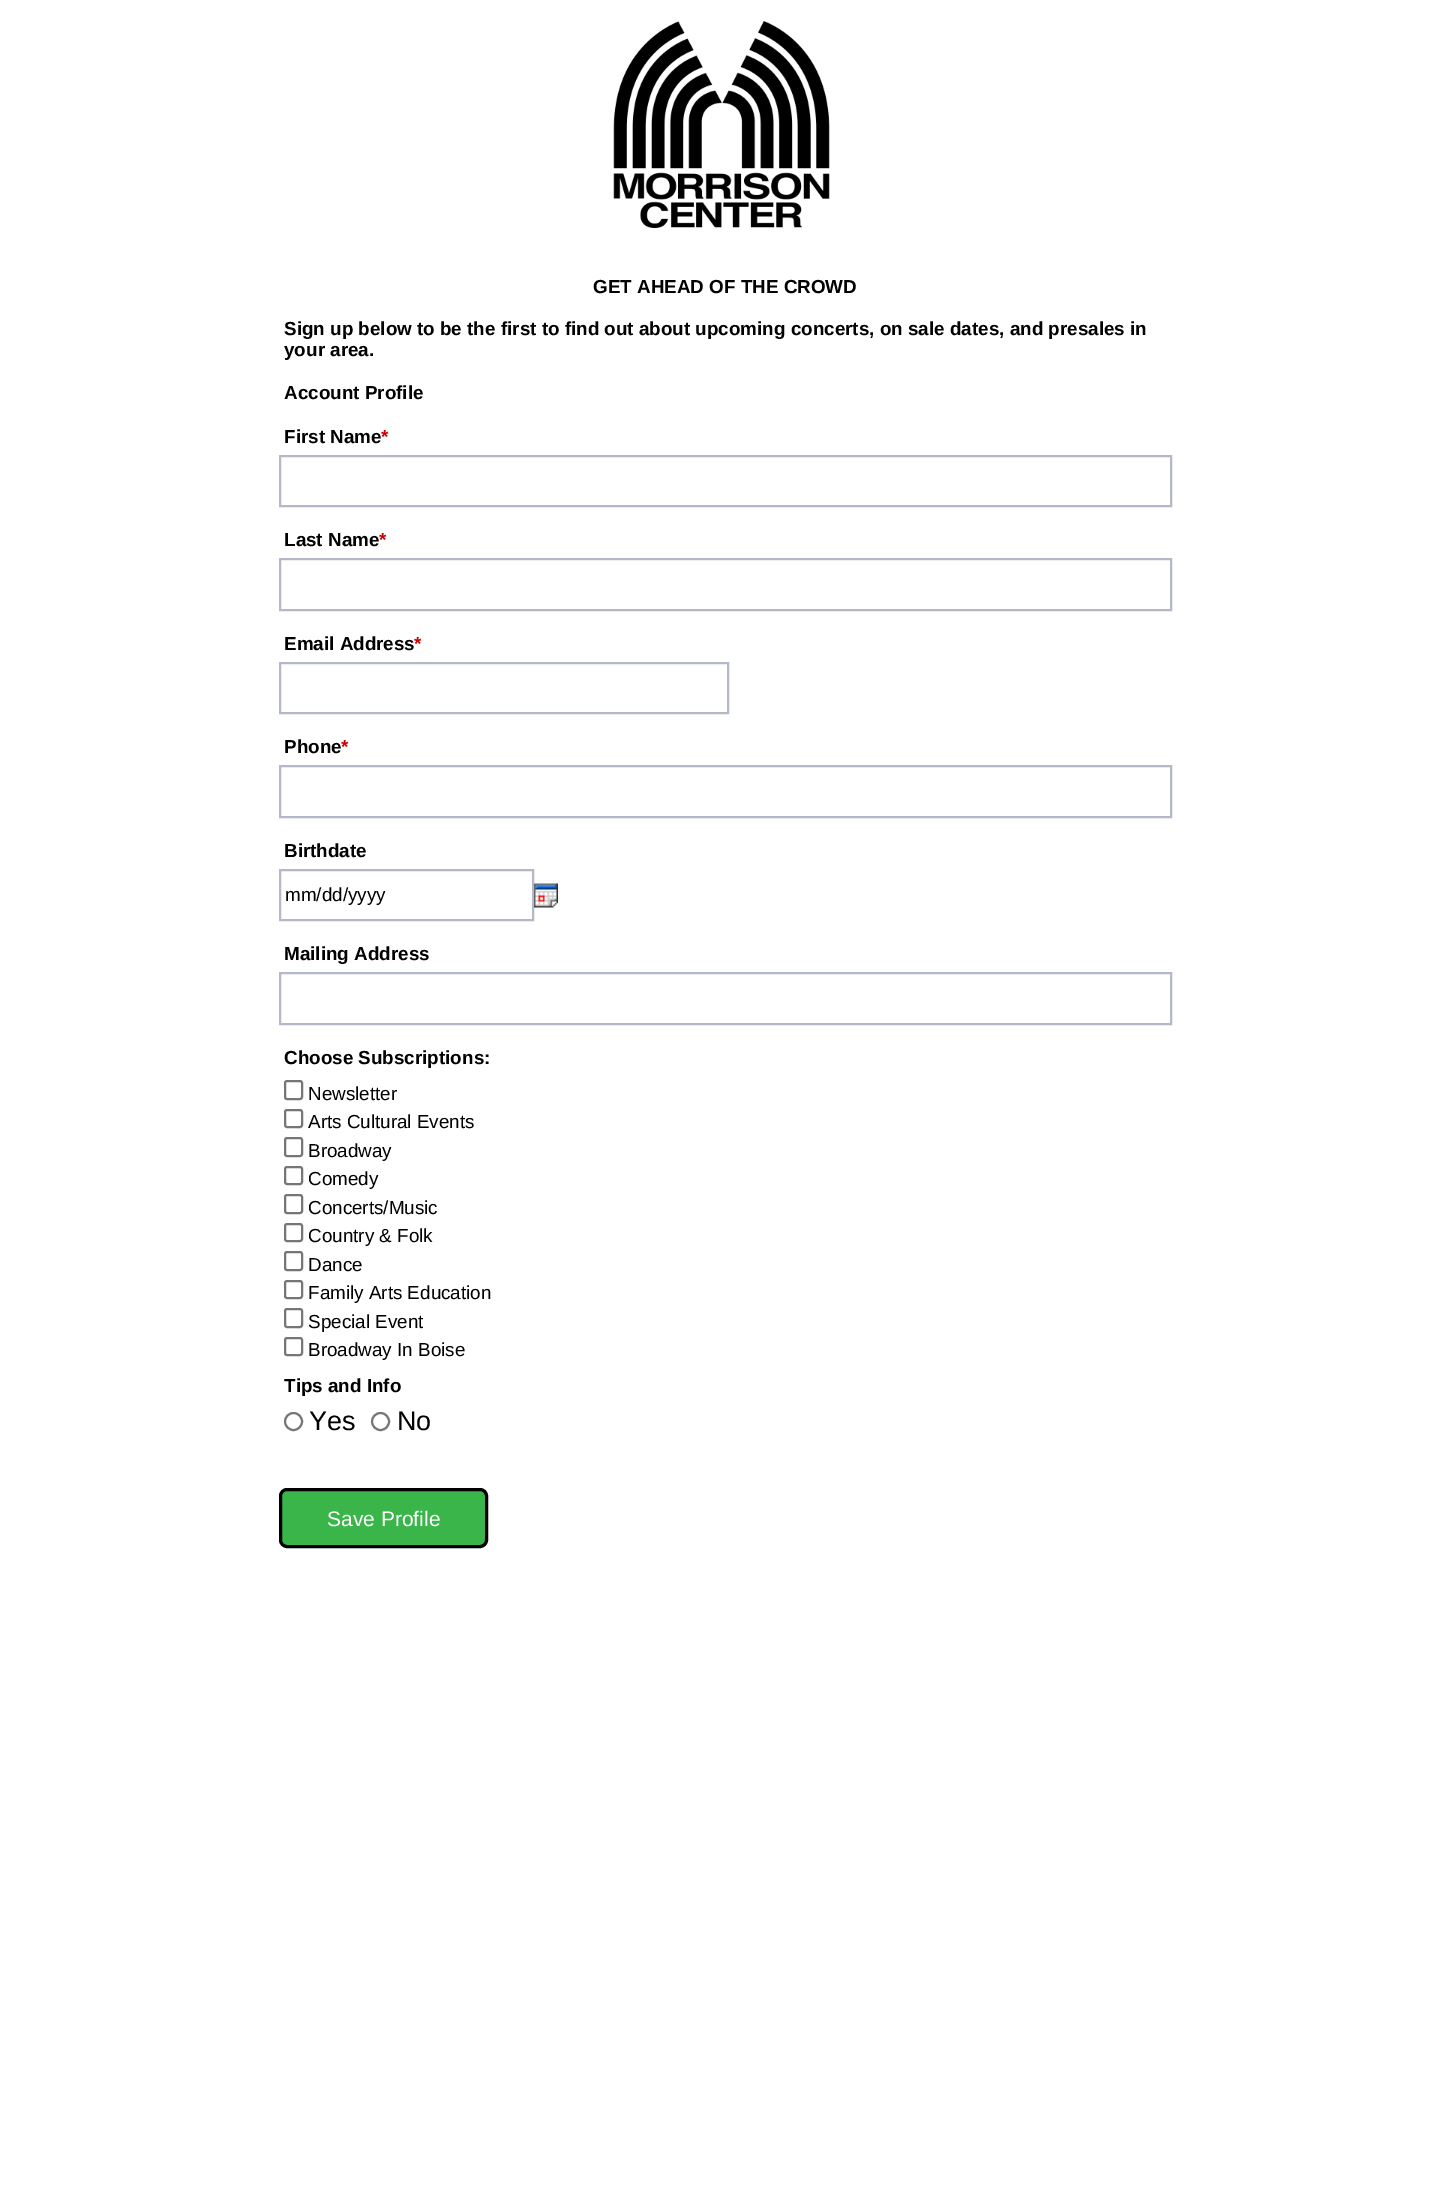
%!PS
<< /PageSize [1443 2200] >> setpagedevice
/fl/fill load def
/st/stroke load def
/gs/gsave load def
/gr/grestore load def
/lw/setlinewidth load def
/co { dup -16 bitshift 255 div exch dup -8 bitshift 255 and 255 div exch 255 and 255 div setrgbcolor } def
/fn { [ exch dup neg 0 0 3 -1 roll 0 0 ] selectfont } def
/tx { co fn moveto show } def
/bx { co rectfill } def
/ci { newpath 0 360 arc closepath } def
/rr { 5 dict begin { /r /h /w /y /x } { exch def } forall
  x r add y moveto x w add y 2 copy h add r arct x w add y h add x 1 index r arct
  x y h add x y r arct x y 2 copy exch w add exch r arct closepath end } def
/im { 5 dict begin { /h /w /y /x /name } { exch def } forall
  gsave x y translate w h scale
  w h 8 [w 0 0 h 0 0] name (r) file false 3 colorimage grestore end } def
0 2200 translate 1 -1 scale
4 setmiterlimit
0 0 1443 2200 16#FFFFFF bx
(media/1.raw) 613 21 217 207 im
16#B5B8C8 co
2 lw
280 456 891 50 rectstroke
280 559 891 51 rectstroke
280 663 448 50 rectstroke
280 766 891 51 rectstroke
280 870 253 50 rectstroke
(media/2.raw) 534 883 24 25 im
280 973 891 51 rectstroke
16#767676 co
285 1081 17 18 2 rr st
285 1110 17 17 2 rr st
285 1138 17 18 2 rr st
285 1167 17 17 2 rr st
285 1195 17 18 2 rr st
285 1224 17 17 2 rr st
285 1252 17 18 2 rr st
285 1281 17 17 2 rr st
285 1309 17 18 2 rr st
285 1338 17 17 2 rr st
293.5 1421.5 8.5 ci st
380.5 1421.5 8.5 ci st
16#3AB54A co
280.5 1489.5 206 57 6.5 rr gs fl gr
16#000000 co
3 lw
st
(GET AHEAD OF THE CROWD) 593 293 /LiberationSans-Bold 18.85 16#000000 tx
(Sign up below to be the first to find out about upcoming concerts, on sale dates, and presales in) 284 335 /LiberationSans-Bold 18.85 16#000000 tx
(your area.) 284 356 /LiberationSans-Bold 18.85 16#000000 tx
(Account Profile) 284 399 /LiberationSans-Bold 18.85 16#000000 tx
(First Name) 284 443 /LiberationSans-Bold 18.85 16#000000 tx
(*) 381 443 /LiberationSans-Bold 18.85 16#CC0000 tx
(Last Name) 284 546 /LiberationSans-Bold 18.85 16#000000 tx
(*) 379 546 /LiberationSans-Bold 18.85 16#CC0000 tx
(Email Address) 284 650 /LiberationSans-Bold 18.85 16#000000 tx
(*) 414 650 /LiberationSans-Bold 18.85 16#CC0000 tx
(Phone) 284 753 /LiberationSans-Bold 18.85 16#000000 tx
(*) 341 753 /LiberationSans-Bold 18.85 16#CC0000 tx
(Birthdate) 284 857 /LiberationSans-Bold 18.85 16#000000 tx
(mm/dd/yyyy) 285 901 /LiberationSans-Regular 18.85 16#000000 tx
(Mailing Address) 284 960 /LiberationSans-Bold 18.85 16#000000 tx
(Choose Subscriptions:) 284 1064 /LiberationSans-Bold 18.85 16#000000 tx
(Newsletter) 308 1100 /LiberationSans-Regular 18.85 16#000000 tx
(Arts Cultural Events) 308 1128 /LiberationSans-Regular 18.85 16#000000 tx
(Broadway) 308 1157 /LiberationSans-Regular 18.85 16#000000 tx
(Comedy) 308 1185 /LiberationSans-Regular 18.85 16#000000 tx
(Concerts/Music) 308 1214 /LiberationSans-Regular 18.85 16#000000 tx
(Country & Folk) 308 1242 /LiberationSans-Regular 18.85 16#000000 tx
(Dance) 308 1271 /LiberationSans-Regular 18.85 16#000000 tx
(Family Arts Education) 308 1299 /LiberationSans-Regular 18.85 16#000000 tx
(Special Event) 308 1328 /LiberationSans-Regular 18.85 16#000000 tx
(Broadway In Boise) 308 1356 /LiberationSans-Regular 18.85 16#000000 tx
(Tips and Info) 284 1392 /LiberationSans-Bold 18.85 16#000000 tx
(Yes) 309 1430 /LiberationSans-Regular 27 16#000000 tx
(No) 397 1430 /LiberationSans-Regular 27 16#000000 tx
(Save Profile) 327 1526 /LiberationSans-Regular 21 16#FFFFFF tx
showpage
